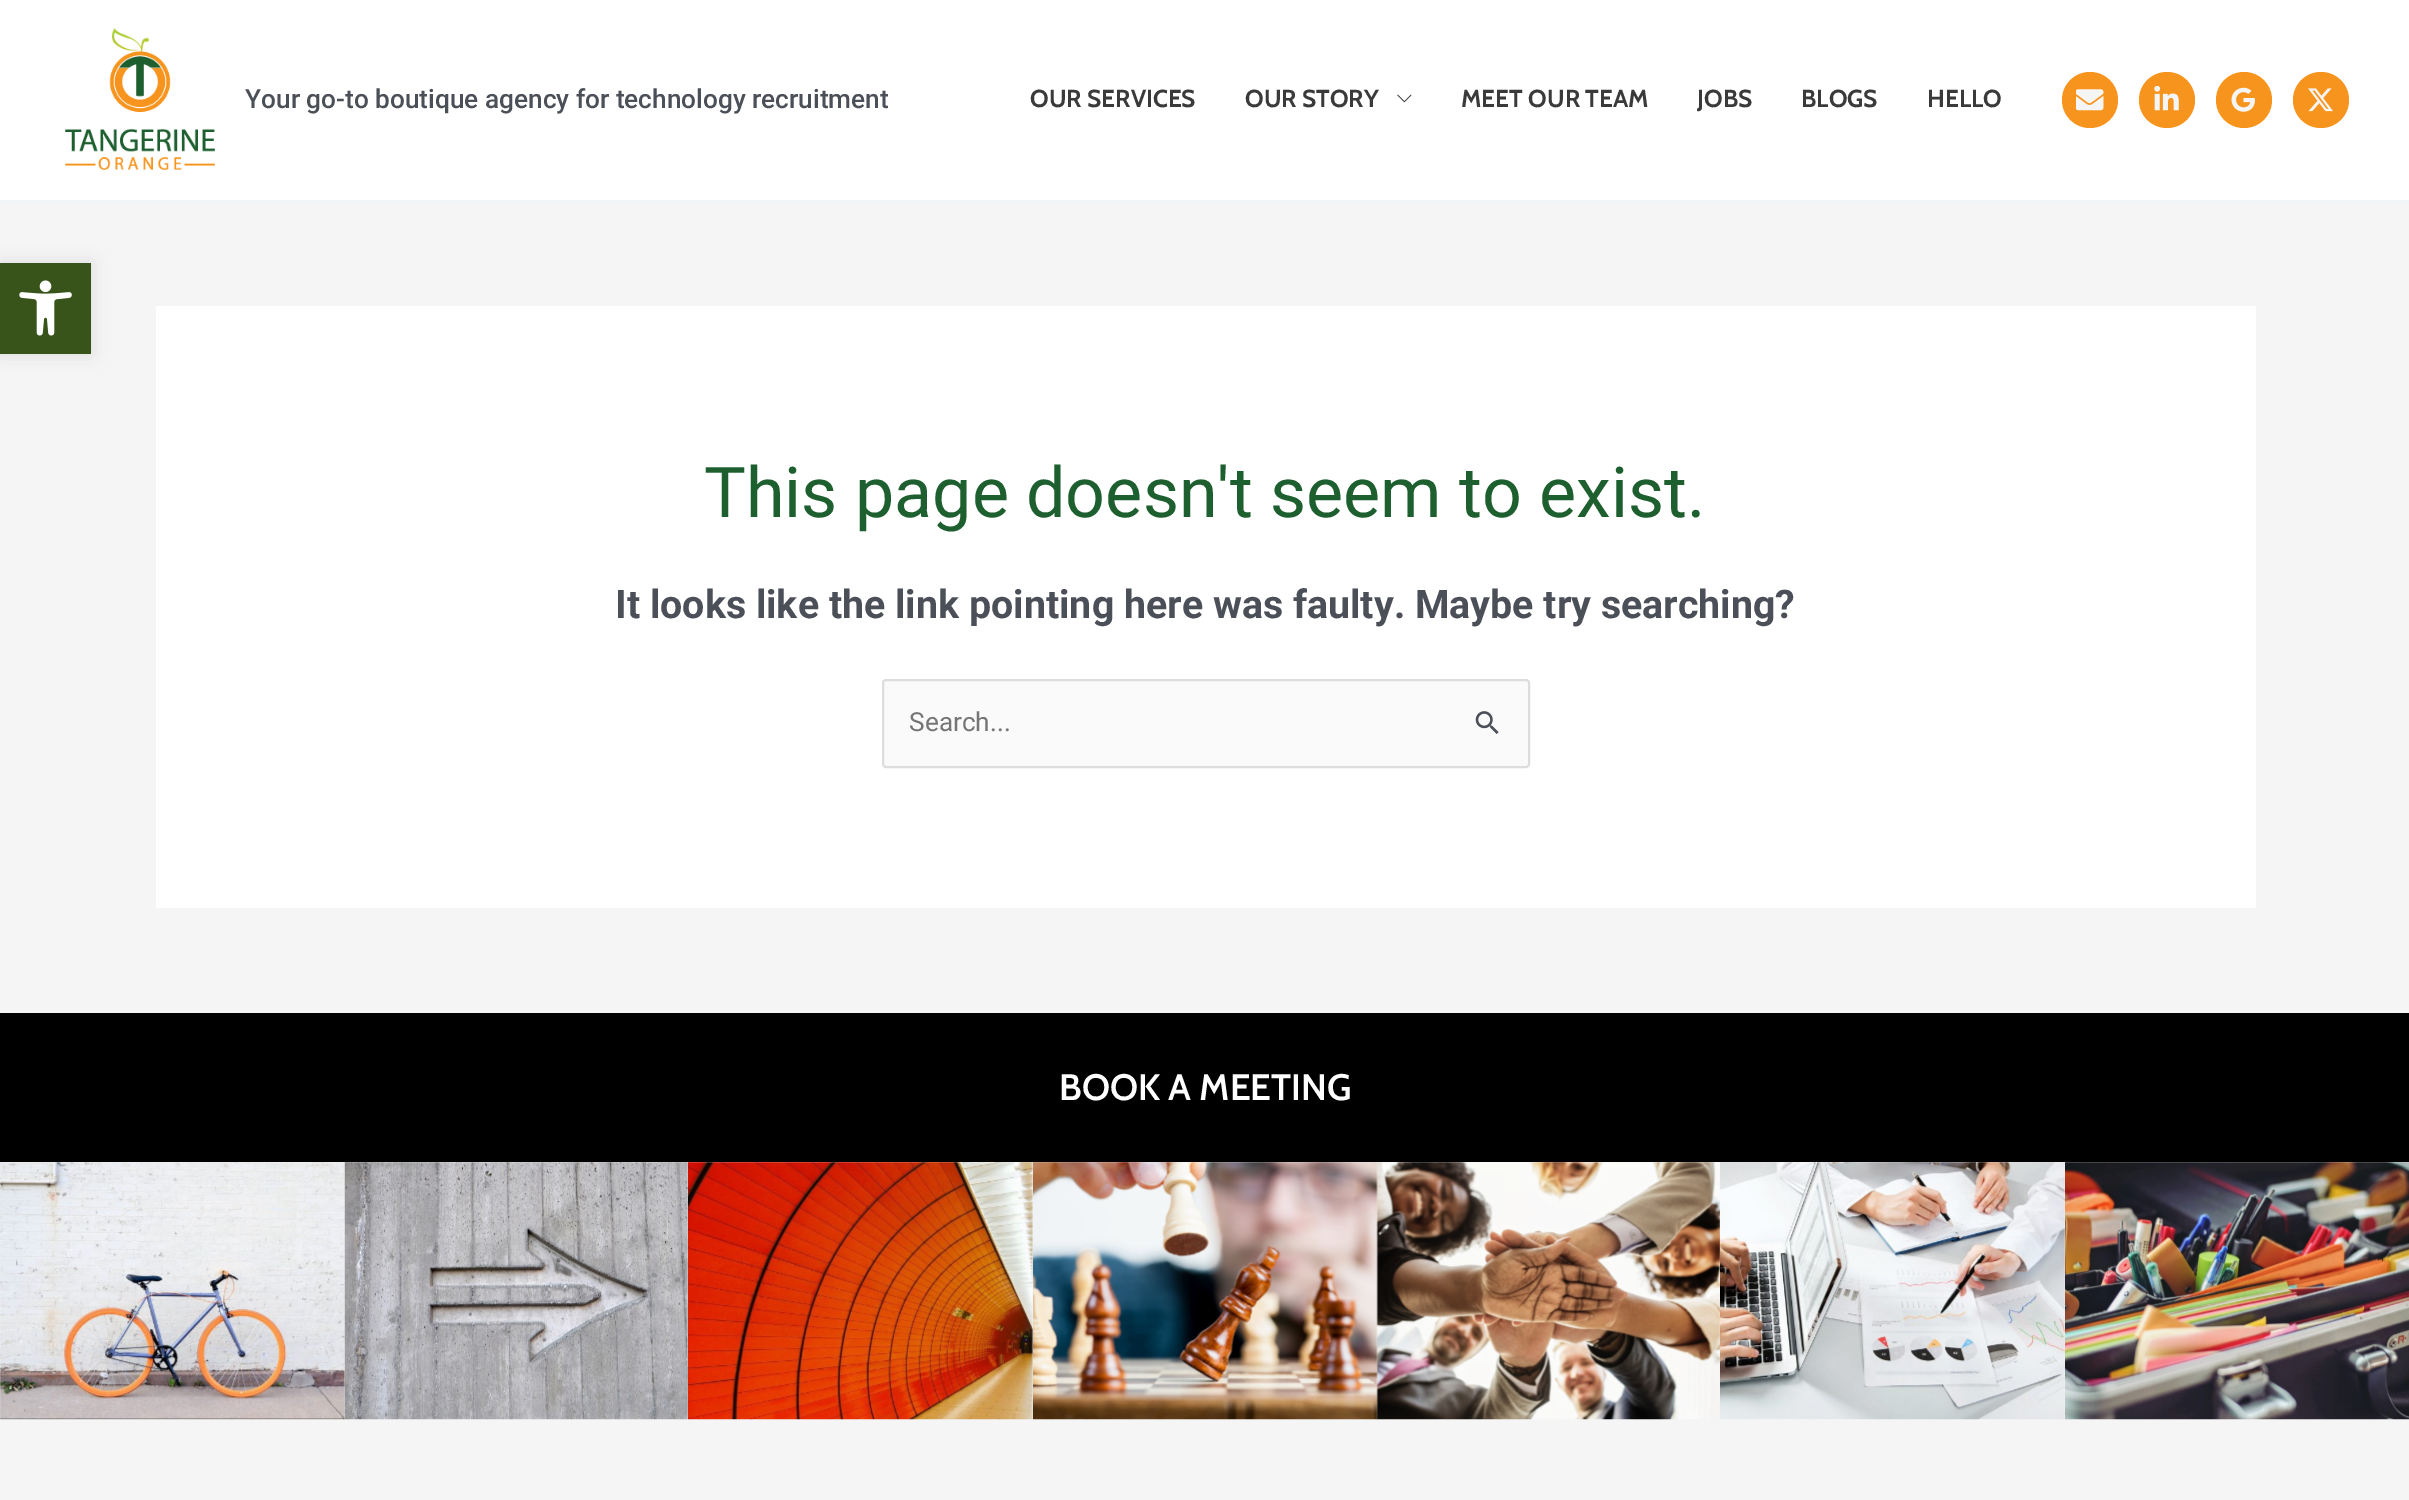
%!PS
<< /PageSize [2409 1500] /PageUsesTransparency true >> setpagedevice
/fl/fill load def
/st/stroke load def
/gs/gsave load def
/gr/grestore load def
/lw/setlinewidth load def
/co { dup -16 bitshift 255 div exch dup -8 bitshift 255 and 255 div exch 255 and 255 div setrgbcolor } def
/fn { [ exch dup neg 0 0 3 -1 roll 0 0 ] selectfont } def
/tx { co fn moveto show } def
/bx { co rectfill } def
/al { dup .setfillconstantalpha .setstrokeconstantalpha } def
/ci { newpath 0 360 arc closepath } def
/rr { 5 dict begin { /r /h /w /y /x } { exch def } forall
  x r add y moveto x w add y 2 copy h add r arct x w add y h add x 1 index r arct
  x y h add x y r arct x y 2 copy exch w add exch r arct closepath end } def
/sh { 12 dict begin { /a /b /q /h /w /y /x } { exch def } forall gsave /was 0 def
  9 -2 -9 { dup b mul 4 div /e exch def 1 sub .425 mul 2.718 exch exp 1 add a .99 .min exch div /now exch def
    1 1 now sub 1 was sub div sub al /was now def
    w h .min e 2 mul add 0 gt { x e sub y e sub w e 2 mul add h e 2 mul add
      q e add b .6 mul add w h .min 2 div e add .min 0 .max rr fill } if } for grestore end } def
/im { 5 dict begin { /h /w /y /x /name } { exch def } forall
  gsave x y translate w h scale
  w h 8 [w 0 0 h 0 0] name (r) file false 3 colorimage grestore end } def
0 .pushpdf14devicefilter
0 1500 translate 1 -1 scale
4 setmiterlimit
0 0 2409 1500 16#F5F5F5 bx
16#000000 co
0 263 91 91 0 9 .1 sh
0 263 91 91 16#38541A bx
(media/1.raw) 19 280 53 56 im
0 0 2409 200 16#FFFFFF bx
0 200 2409 2 16#F2F5F7 bx
(media/2.raw) 65 28 150 142 im
(media/3.raw) 1397 94 15 9 im
16#F7941E co
2090 100 28 ci fl
(media/4.raw) 2076 89 28 22 im
2167 100 28 ci fl
(media/5.raw) 2154 86 25 25 im
2244 100 28 ci fl
(media/6.raw) 2231 87 24 25 im
2321 100 28 ci fl
(media/7.raw) 2308 88 25 24 im
156 306 2100 602 16#FFFFFF bx
16#FAFAFA co
883 680 646 87 3 rr gs fl gr
16#DDDDDD co
2 lw
st
(media/8.raw) 1475 711 24 23 im
0 1013 2409 149 16#000000 bx
(media/9.raw) 0 1162 345 258 im
(media/10.raw) 344 1162 344 258 im
(media/11.raw) 688 1162 345 258 im
(media/12.raw) 1033 1162 345 258 im
(media/13.raw) 1376 1162 345 258 im
(media/14.raw) 1720 1162 346 258 im
(media/15.raw) 2065 1162 344 258 im
(Your go-to boutique agency for technology recruitment) 245 108 /Roboto-Medium 26.25 16#4B4F58 tx
(OUR SERVICES) 1030 107 /Cabin-Bold 24.5 16#3A3A3A tx
(OUR STORY) 1245 107 /Cabin-Bold 24.5 16#3A3A3A tx
(MEET OUR TEAM) 1461 107 /Cabin-Bold 24.5 16#3A3A3A tx
(JOBS) 1697 107 /Cabin-Bold 24.5 16#3A3A3A tx
(BLOGS) 1801 107 /Cabin-Bold 24.5 16#3A3A3A tx
(HELLO) 1927 107 /Cabin-Bold 24.5 16#3A3A3A tx
(This page doesn't seem to exist.) 704 517 /Roboto-Regular 70 16#1E5F2F tx
(It looks like the link pointing here was faulty. Maybe try searching?) 615 618 /Roboto-Bold 39.4 16#4B4F58 tx
(Search...) 909 731 /Roboto-Regular 26.25 16#757575 tx
(BOOK A MEETING) 1059 1100 /Cabin-SemiBold 36.75 16#FFFFFF tx
.poppdf14devicefilter showpage
